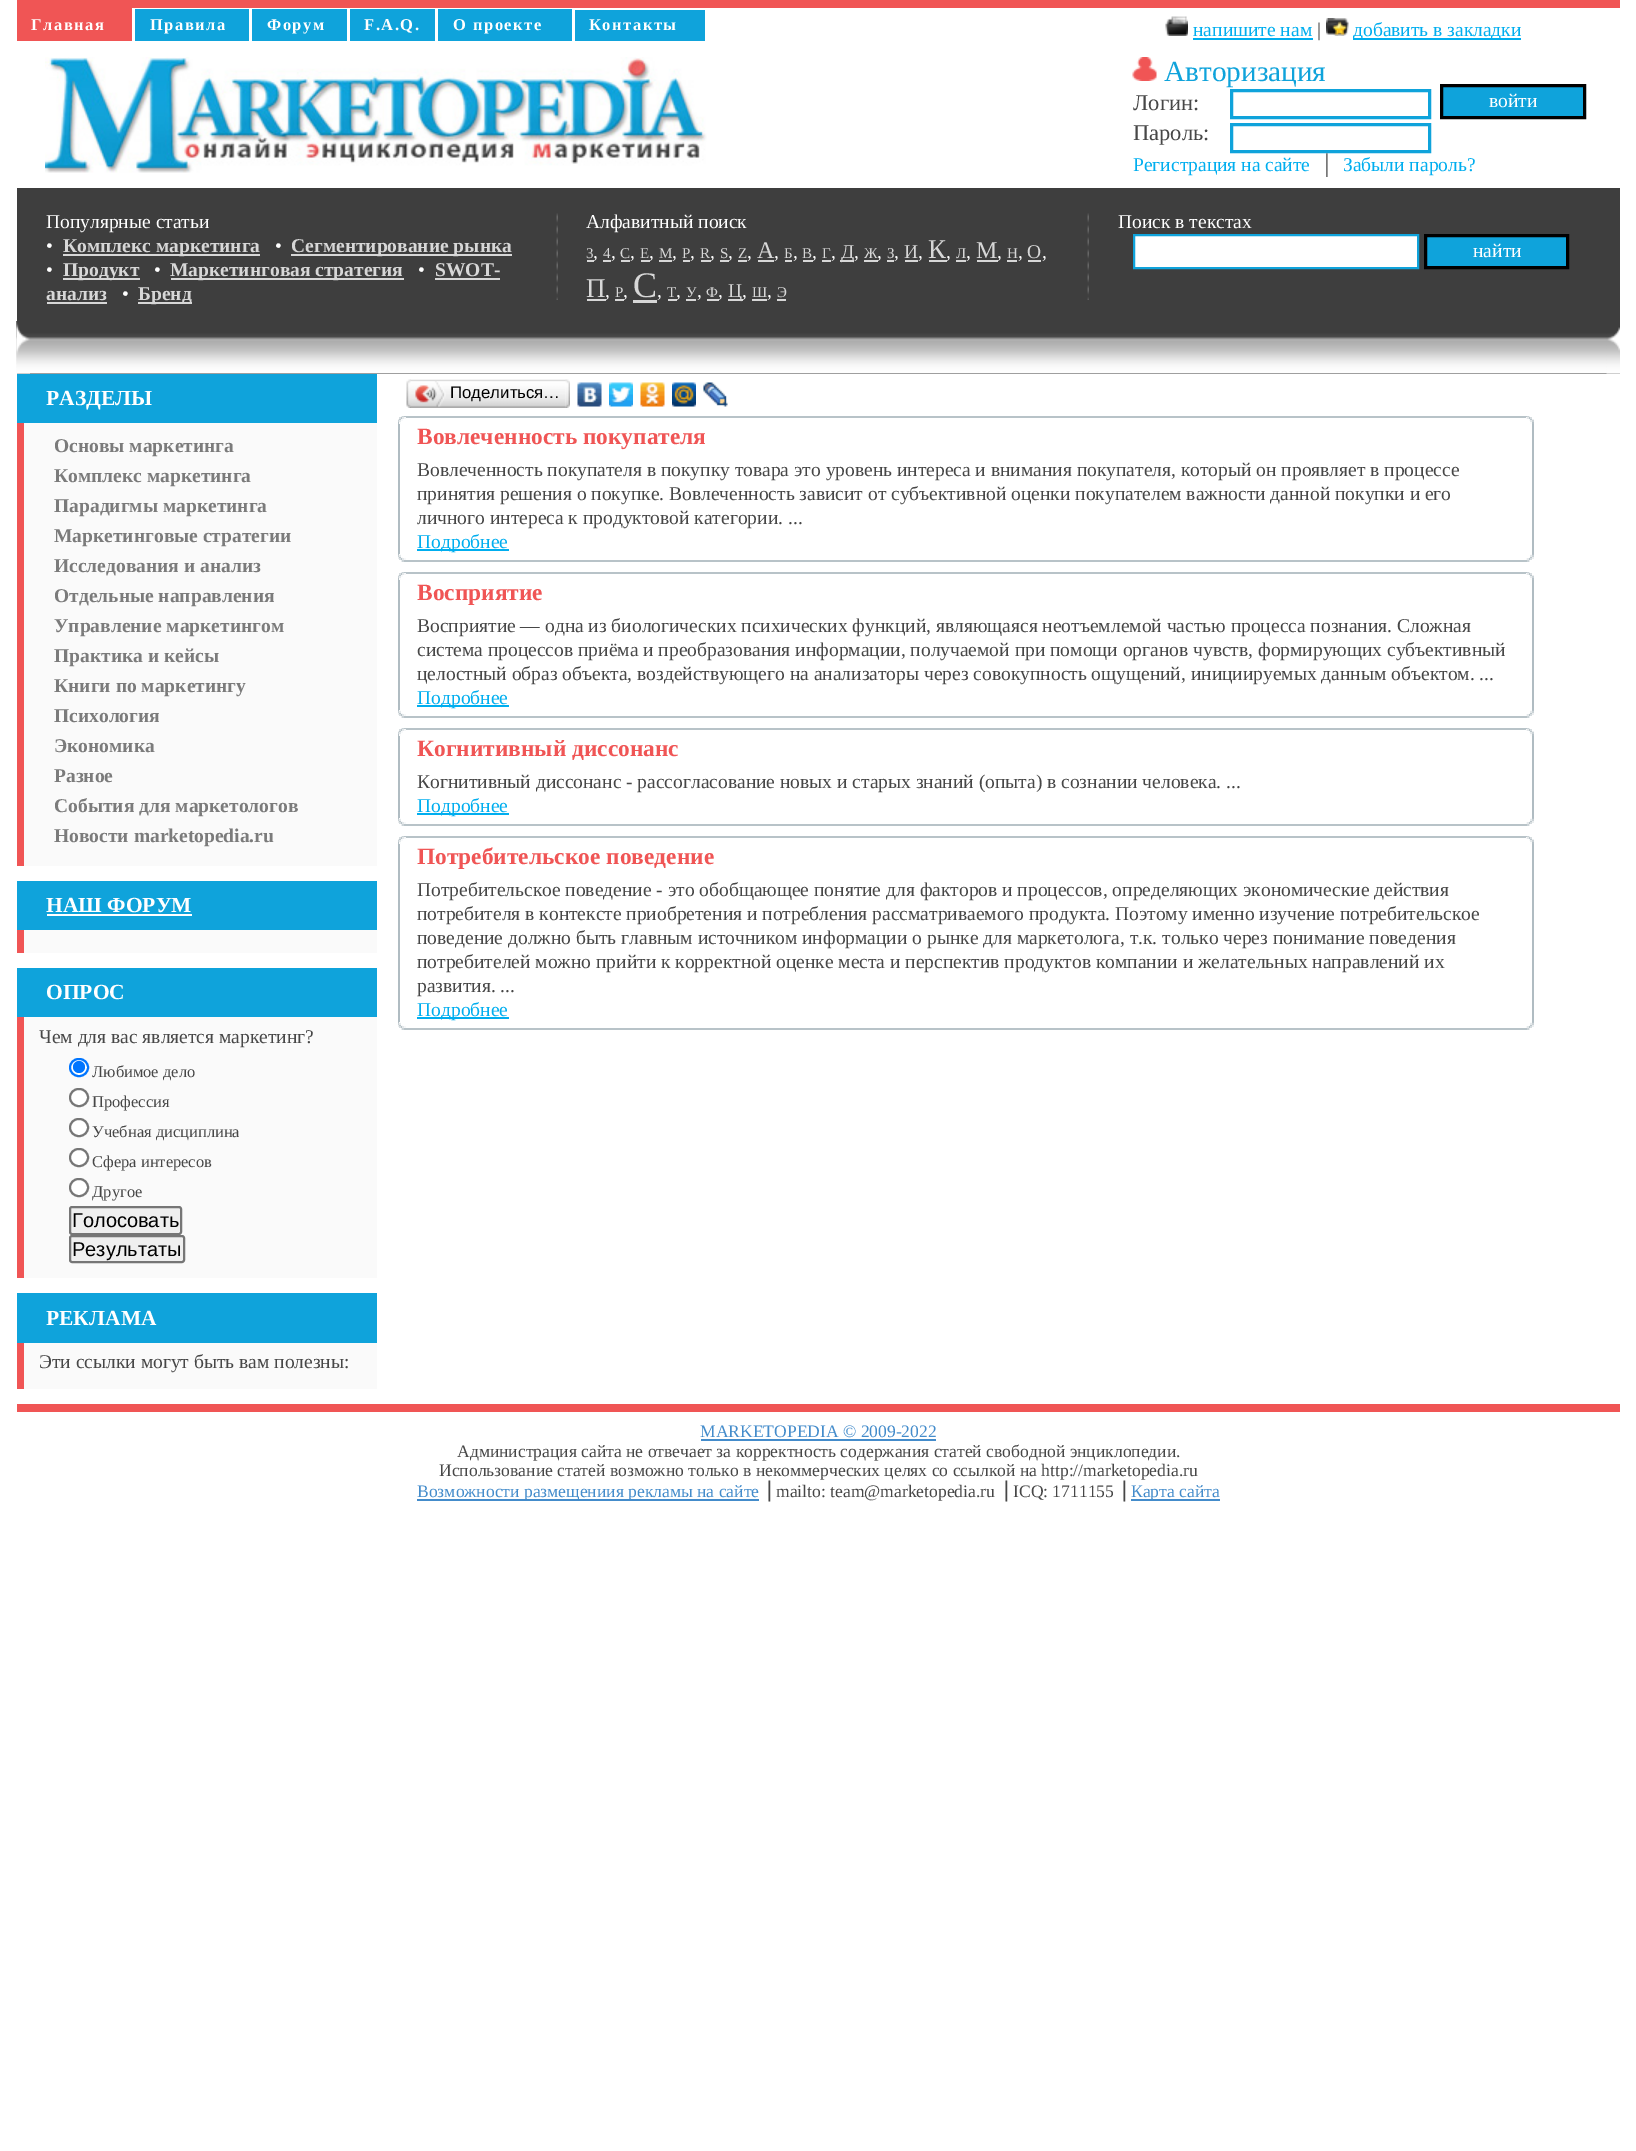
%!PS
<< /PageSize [1636 2151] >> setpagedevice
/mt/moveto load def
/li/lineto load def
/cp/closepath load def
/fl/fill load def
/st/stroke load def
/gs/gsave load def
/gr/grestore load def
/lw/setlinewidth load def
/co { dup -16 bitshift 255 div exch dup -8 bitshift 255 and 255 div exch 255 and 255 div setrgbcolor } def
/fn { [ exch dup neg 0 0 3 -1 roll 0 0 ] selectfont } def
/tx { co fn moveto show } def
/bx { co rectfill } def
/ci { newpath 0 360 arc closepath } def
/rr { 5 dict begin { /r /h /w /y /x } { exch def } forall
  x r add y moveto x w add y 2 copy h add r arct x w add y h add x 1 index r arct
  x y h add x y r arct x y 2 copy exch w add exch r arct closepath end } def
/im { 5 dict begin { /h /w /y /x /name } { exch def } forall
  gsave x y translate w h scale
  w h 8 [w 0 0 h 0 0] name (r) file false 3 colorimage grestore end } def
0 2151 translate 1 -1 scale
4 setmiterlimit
0 0 1636 2151 16#FFFFFF bx
17 0 1603 8 16#F05555 bx
17 8 115 33 16#F05555 bx
135 9 114 32 16#0FA3DB bx
252 9 95 32 16#0FA3DB bx
350 9 85 32 16#0FA3DB bx
438 9 134 32 16#0FA3DB bx
575 10 130 31 16#0FA3DB bx
(media/1.raw) 1165 16 23 20 im
1193 38 120 2 16#00AEEF bx
(media/2.raw) 1326 18 23 18 im
1353 38 168 2 16#00AEEF bx
(media/3.raw) 45 57 662 116 im
(media/4.raw) 1132 57 25 24 im
16#0FA3DB co
3 lw
1231.5 90.5 198 27 rectstroke
1231.5 124.5 198 27 rectstroke
1441.5 85.5 mt 1584.5 85.5 li 1584.5 117.5 li 1441.5 117.5 li cp gs fl gr
16#000000 co
st
17 188 1603 186 16#3E3E3E bx
(media/5.raw) 16 321 1604 53 im
(media/6.raw) 16 321 14 53 im
(media/7.raw) 1606 327 14 47 im
63 254 197 2 16#D7D7D7 bx
291 254 221 2 16#D7D7D7 bx
63 278 77 2 16#D7D7D7 bx
171 278 233 2 16#D7D7D7 bx
435 278 65 2 16#D7D7D7 bx
47 302 60 2 16#D7D7D7 bx
138 302 54 2 16#D7D7D7 bx
(media/8.raw) 556 213 2 87 im
587 260 7 2 16#D7D7D7 bx
603 260 8 2 16#D7D7D7 bx
621 260 9 2 16#D7D7D7 bx
641 260 9 2 16#D7D7D7 bx
659 260 13 2 16#D7D7D7 bx
683 260 7 2 16#D7D7D7 bx
701 260 10 2 16#D7D7D7 bx
720 260 9 2 16#D7D7D7 bx
738 260 9 2 16#D7D7D7 bx
758 260 16 2 16#D7D7D7 bx
785 260 7 2 16#D7D7D7 bx
803 260 10 2 16#D7D7D7 bx
822 260 9 2 16#D7D7D7 bx
840 260 14 2 16#D7D7D7 bx
864 260 14 2 16#D7D7D7 bx
887 260 7 2 16#D7D7D7 bx
905 260 13 2 16#D7D7D7 bx
929 260 18 2 16#D7D7D7 bx
956 260 10 2 16#D7D7D7 bx
977 260 21 2 16#D7D7D7 bx
1007 260 10 2 16#D7D7D7 bx
1028 260 13 2 16#D7D7D7 bx
587 299 19 2 16#D7D7D7 bx
615 299 9 2 16#D7D7D7 bx
633 300 24 3 16#D7D7D7 bx
668 299 9 2 16#D7D7D7 bx
686 299 10 2 16#D7D7D7 bx
707 299 12 2 16#D7D7D7 bx
728 299 15 2 16#D7D7D7 bx
752 299 15 2 16#D7D7D7 bx
777 299 9 2 16#D7D7D7 bx
(media/8.raw) 1087 213 2 87 im
16#FFFFFF co
1134 235 mt 1418 235 li 1418 268 li 1134 268 li cp gs fl gr
16#0FA3DB co
2 lw
st
1425.5 235.5 mt 1567.5 235.5 li 1567.5 267.5 li 1425.5 267.5 li cp gs fl gr
16#000000 co
3 lw
st
24 423 353 443 16#FAFAFA bx
17 423 7 443 16#F05555 bx
17 374 360 49 16#0FA3DB bx
24 930 353 23 16#FAFAFA bx
17 930 7 23 16#F05555 bx
17 881 360 49 16#0FA3DB bx
47 914 145 2 16#FFFFFF bx
24 1017 353 261 16#FAFAFA bx
17 1017 7 261 16#F05555 bx
17 968 360 49 16#0FA3DB bx
16#FFFFFF co
70 1059 18 17 8.5 rr gs fl gr
16#0075FF co
2 lw
st
79 1067 6 ci fl
16#FFFFFF co
70 1089 18 17 8.5 rr gs fl gr
16#767676 co
st
16#FFFFFF co
70 1119 18 17 8.5 rr gs fl gr
16#767676 co
st
16#FFFFFF co
70 1149 18 17 8.5 rr gs fl gr
16#767676 co
st
16#FFFFFF co
70 1179 18 17 8.5 rr gs fl gr
16#767676 co
st
16#EFEFEF co
70 1207 111 27 2 rr gs fl gr
16#767676 co
st
16#EFEFEF co
70 1236 114 26 2 rr gs fl gr
16#767676 co
st
24 1343 353 46 16#FAFAFA bx
17 1343 7 46 16#F05555 bx
17 1293 360 50 16#0FA3DB bx
(media/9.raw) 411 379 155 29 im
(media/10.raw) 406 379 5 29 im
(media/11.raw) 415 381 31 26 im
(media/12.raw) 565 379 5 29 im
(media/13.raw) 577 382 25 25 im
(media/14.raw) 609 382 24 25 im
(media/15.raw) 640 382 25 25 im
(media/16.raw) 672 382 24 25 im
(media/17.raw) 703 382 25 25 im
401 416 1129 1 16#EBEEF0 bx
404 416 1123 2 16#B8C3C8 bx
1527 416 2 1 16#CBD3D7 bx
402 416 2 1 16#CBD3D7 bx
1530 417 2 2 16#D6DCDF bx
399 417 2 2 16#D6DCDF bx
1529 417 1 2 16#B8C3C8 bx
401 417 2 2 16#B8C3C8 bx
1527 417 2 2 16#E4E8EA bx
402 417 2 2 16#E4E8EA bx
1526 417 1 2 16#F7F8F9 bx
404 417 2 2 16#F7F8F9 bx
1532 419 2 1 16#EBEEEF bx
398 419 2 1 16#EBEEEF bx
1530 419 2 1 16#BCC6CB bx
399 419 2 1 16#BCC6CB bx
1529 419 1 2 16#F9FAFB bx
401 419 2 2 16#F9FAFB bx
1532 420 2 2 16#CAD2D6 bx
398 420 2 2 16#CAD2D6 bx
1530 420 2 2 16#E5E9EB bx
399 420 2 2 16#E5E9EB bx
1532 423 2 131 16#B0BCC2 bx
1532 422 2 2 16#B5C0C6 bx
398 423 2 131 16#B0BCC2 bx
398 422 2 2 16#B5C0C6 bx
1530 422 2 2 16#FAFBFB bx
399 422 2 2 16#FAFBFB bx
417 549 92 2 16#00AEEF bx
1532 554 2 1 16#B5C0C6 bx
398 554 2 1 16#B5C0C6 bx
1530 554 2 1 16#FAFBFB bx
399 554 2 1 16#FAFBFB bx
1532 555 2 2 16#CAD2D6 bx
398 555 2 2 16#CAD2D6 bx
1530 555 2 2 16#E5E9EB bx
399 555 2 2 16#E5E9EB bx
1532 557 2 2 16#EBEEEF bx
398 557 2 2 16#EBEEEF bx
1530 557 2 1 16#BCC6CB bx
399 557 2 1 16#BCC6CB bx
1529 557 1 2 16#F9FAFB bx
401 557 2 1 16#F9FAFB bx
1530 558 2 2 16#D6DCDF bx
399 558 2 2 16#D6DCDF bx
1529 558 1 2 16#B8C3C8 bx
401 558 2 2 16#B8C3C8 bx
1527 558 2 2 16#E4E8EA bx
402 558 2 2 16#E4E8EA bx
1526 558 1 2 16#F7F8F9 bx
404 558 2 2 16#F7F8F9 bx
401 560 1129 2 16#EBEEF0 bx
404 560 1123 2 16#B8C3C8 bx
1527 560 2 2 16#CBD3D7 bx
402 560 2 2 16#CBD3D7 bx
401 572 1129 1 16#EBEEF0 bx
404 572 1123 2 16#B8C3C8 bx
1527 572 2 1 16#CBD3D7 bx
402 572 2 1 16#CBD3D7 bx
1530 573 2 2 16#D6DCDF bx
399 573 2 2 16#D6DCDF bx
1529 573 1 2 16#B8C3C8 bx
401 573 2 2 16#B8C3C8 bx
1527 573 2 2 16#E4E8EA bx
402 573 2 2 16#E4E8EA bx
1526 573 1 2 16#F7F8F9 bx
404 573 2 2 16#F7F8F9 bx
1532 575 2 1 16#EBEEEF bx
398 575 2 1 16#EBEEEF bx
1530 575 2 1 16#BCC6CB bx
399 575 2 1 16#BCC6CB bx
1529 575 1 2 16#F9FAFB bx
401 575 2 2 16#F9FAFB bx
1532 576 2 2 16#CAD2D6 bx
398 576 2 2 16#CAD2D6 bx
1530 576 2 2 16#E5E9EB bx
399 576 2 2 16#E5E9EB bx
1532 579 2 131 16#B0BCC2 bx
1532 578 2 2 16#B5C0C6 bx
398 579 2 131 16#B0BCC2 bx
398 578 2 2 16#B5C0C6 bx
1530 578 2 2 16#FAFBFB bx
399 578 2 2 16#FAFBFB bx
417 705 92 2 16#00AEEF bx
1532 710 2 1 16#B5C0C6 bx
398 710 2 1 16#B5C0C6 bx
1530 710 2 1 16#FAFBFB bx
399 710 2 1 16#FAFBFB bx
1532 711 2 2 16#CAD2D6 bx
398 711 2 2 16#CAD2D6 bx
1530 711 2 2 16#E5E9EB bx
399 711 2 2 16#E5E9EB bx
1532 713 2 2 16#EBEEEF bx
398 713 2 2 16#EBEEEF bx
1530 713 2 1 16#BCC6CB bx
399 713 2 1 16#BCC6CB bx
1529 713 1 2 16#F9FAFB bx
401 713 2 1 16#F9FAFB bx
1530 714 2 2 16#D6DCDF bx
399 714 2 2 16#D6DCDF bx
1529 714 1 2 16#B8C3C8 bx
401 714 2 2 16#B8C3C8 bx
1527 714 2 2 16#E4E8EA bx
402 714 2 2 16#E4E8EA bx
1526 714 1 2 16#F7F8F9 bx
404 714 2 2 16#F7F8F9 bx
401 716 1129 2 16#EBEEF0 bx
404 716 1123 2 16#B8C3C8 bx
1527 716 2 2 16#CBD3D7 bx
402 716 2 2 16#CBD3D7 bx
401 728 1129 1 16#EBEEF0 bx
404 728 1123 2 16#B8C3C8 bx
1527 728 2 1 16#CBD3D7 bx
402 728 2 1 16#CBD3D7 bx
1530 729 2 2 16#D6DCDF bx
399 729 2 2 16#D6DCDF bx
1529 729 1 2 16#B8C3C8 bx
401 729 2 2 16#B8C3C8 bx
1527 729 2 2 16#E4E8EA bx
402 729 2 2 16#E4E8EA bx
1526 729 1 2 16#F7F8F9 bx
404 729 2 2 16#F7F8F9 bx
1532 731 2 1 16#EBEEEF bx
398 731 2 1 16#EBEEEF bx
1530 731 2 1 16#BCC6CB bx
399 731 2 1 16#BCC6CB bx
1529 731 1 2 16#F9FAFB bx
401 731 2 2 16#F9FAFB bx
1532 732 2 2 16#CAD2D6 bx
398 732 2 2 16#CAD2D6 bx
1530 732 2 2 16#E5E9EB bx
399 732 2 2 16#E5E9EB bx
1532 735 2 83 16#B0BCC2 bx
1532 734 2 2 16#B5C0C6 bx
398 735 2 83 16#B0BCC2 bx
398 734 2 2 16#B5C0C6 bx
1530 734 2 2 16#FAFBFB bx
399 734 2 2 16#FAFBFB bx
417 813 92 2 16#00AEEF bx
1532 818 2 1 16#B5C0C6 bx
398 818 2 1 16#B5C0C6 bx
1530 818 2 1 16#FAFBFB bx
399 818 2 1 16#FAFBFB bx
1532 819 2 2 16#CAD2D6 bx
398 819 2 2 16#CAD2D6 bx
1530 819 2 2 16#E5E9EB bx
399 819 2 2 16#E5E9EB bx
1532 821 2 2 16#EBEEEF bx
398 821 2 2 16#EBEEEF bx
1530 821 2 1 16#BCC6CB bx
399 821 2 1 16#BCC6CB bx
1529 821 1 2 16#F9FAFB bx
401 821 2 1 16#F9FAFB bx
1530 822 2 2 16#D6DCDF bx
399 822 2 2 16#D6DCDF bx
1529 822 1 2 16#B8C3C8 bx
401 822 2 2 16#B8C3C8 bx
1527 822 2 2 16#E4E8EA bx
402 822 2 2 16#E4E8EA bx
1526 822 1 2 16#F7F8F9 bx
404 822 2 2 16#F7F8F9 bx
401 824 1129 2 16#EBEEF0 bx
404 824 1123 2 16#B8C3C8 bx
1527 824 2 2 16#CBD3D7 bx
402 824 2 2 16#CBD3D7 bx
401 836 1129 1 16#EBEEF0 bx
404 836 1123 2 16#B8C3C8 bx
1527 836 2 1 16#CBD3D7 bx
402 836 2 1 16#CBD3D7 bx
1530 837 2 2 16#D6DCDF bx
399 837 2 2 16#D6DCDF bx
1529 837 1 2 16#B8C3C8 bx
401 837 2 2 16#B8C3C8 bx
1527 837 2 2 16#E4E8EA bx
402 837 2 2 16#E4E8EA bx
1526 837 1 2 16#F7F8F9 bx
404 837 2 2 16#F7F8F9 bx
1532 839 2 1 16#EBEEEF bx
398 839 2 1 16#EBEEEF bx
1530 839 2 1 16#BCC6CB bx
399 839 2 1 16#BCC6CB bx
1529 839 1 2 16#F9FAFB bx
401 839 2 2 16#F9FAFB bx
1532 840 2 2 16#CAD2D6 bx
398 840 2 2 16#CAD2D6 bx
1530 840 2 2 16#E5E9EB bx
399 840 2 2 16#E5E9EB bx
1532 843 2 179 16#B0BCC2 bx
1532 842 2 2 16#B5C0C6 bx
398 843 2 179 16#B0BCC2 bx
398 842 2 2 16#B5C0C6 bx
1530 842 2 2 16#FAFBFB bx
399 842 2 2 16#FAFBFB bx
417 1017 92 2 16#00AEEF bx
1532 1022 2 1 16#B5C0C6 bx
398 1022 2 1 16#B5C0C6 bx
1530 1022 2 1 16#FAFBFB bx
399 1022 2 1 16#FAFBFB bx
1532 1023 2 2 16#CAD2D6 bx
398 1023 2 2 16#CAD2D6 bx
1530 1023 2 2 16#E5E9EB bx
399 1023 2 2 16#E5E9EB bx
1532 1025 2 2 16#EBEEEF bx
398 1025 2 2 16#EBEEEF bx
1530 1025 2 1 16#BCC6CB bx
399 1025 2 1 16#BCC6CB bx
1529 1025 1 2 16#F9FAFB bx
401 1025 2 1 16#F9FAFB bx
1530 1026 2 2 16#D6DCDF bx
399 1026 2 2 16#D6DCDF bx
1529 1026 1 2 16#B8C3C8 bx
401 1026 2 2 16#B8C3C8 bx
1527 1026 2 2 16#E4E8EA bx
402 1026 2 2 16#E4E8EA bx
1526 1026 1 2 16#F7F8F9 bx
404 1026 2 2 16#F7F8F9 bx
401 1028 1129 2 16#EBEEF0 bx
404 1028 1123 2 16#B8C3C8 bx
1527 1028 2 2 16#CBD3D7 bx
402 1028 2 2 16#CBD3D7 bx
17 1404 1603 8 16#F05555 bx
701 1439 235 2 16#448CCB bx
417 1499 342 2 16#448CCB bx
1131 1499 89 2 16#448CCB bx
/LiberationSerif-Bold 16.5 fn
16#FFFFFF co
31 30 mt 1.5 0 (Главная) ashow
150 30 mt 1.5 0 (Правила) ashow
267 30 mt 1.5 0 (Форум) ashow
364 30 mt 1.5 0 (F.A.Q.) ashow
453 30 mt 1.5 0 (О проекте) ashow
589 30 mt 1.5 0 (Контакты) ashow
(напишите нам) 1193 36 /LiberationSerif-Regular 19.5 16#00AEEF tx
(|) 1317 36 /LiberationSerif-Regular 19.5 16#474747 tx
(добавить в закладки) 1353 36 /LiberationSerif-Regular 19.5 16#00AEEF tx
(Авторизация) 1164 81 /LiberationSerif-Regular 29.25 16#0FA3DB tx
(Логин:) 1133 110 /LiberationSerif-Regular 22.5 16#474747 tx
(Пароль:) 1133 140 /LiberationSerif-Regular 22.5 16#474747 tx
(войти) 1489 107 /LiberationSerif-Regular 19.5 16#FFFFFF tx
(Регистрация на сайте) 1133 171 /LiberationSerif-Regular 19.5 16#00AEEF tx
(│) 1320 171 /LiberationSerif-Regular 19.5 16#474747 tx
(Забыли пароль?) 1343 171 /LiberationSerif-Regular 19.5 16#00AEEF tx
(Популярные статьи) 46 228 /LiberationSerif-Regular 19.5 16#FFFFFF tx
(•) 46 252 /LiberationSerif-Regular 19.5 16#FFFFFF tx
(Комплекс маркетинга) 63 252 /LiberationSerif-Bold 19.5 16#D7D7D7 tx
(•) 275 252 /LiberationSerif-Regular 19.5 16#FFFFFF tx
(Сегментирование рынка) 291 252 /LiberationSerif-Bold 19.5 16#D7D7D7 tx
(•) 46 276 /LiberationSerif-Regular 19.5 16#FFFFFF tx
(Продукт) 63 276 /LiberationSerif-Bold 19.5 16#D7D7D7 tx
(•) 154 276 /LiberationSerif-Regular 19.5 16#FFFFFF tx
(Маркетинговая стратегия) 170 276 /LiberationSerif-Bold 19.5 16#D7D7D7 tx
(•) 418 276 /LiberationSerif-Regular 19.5 16#FFFFFF tx
(SWOT-) 435 276 /LiberationSerif-Bold 19.5 16#D7D7D7 tx
(анализ) 46 300 /LiberationSerif-Bold 19.5 16#D7D7D7 tx
(•) 122 300 /LiberationSerif-Regular 19.5 16#FFFFFF tx
(Бренд) 138 300 /LiberationSerif-Bold 19.5 16#D7D7D7 tx
(Алфавитный поиск) 586 228 /LiberationSerif-Regular 19.5 16#FFFFFF tx
(3) 586 258 /LiberationSerif-Regular 15 16#D7D7D7 tx
(4) 603 258 /LiberationSerif-Regular 15 16#D7D7D7 tx
(C) 620 258 /LiberationSerif-Regular 15 16#D7D7D7 tx
(E) 640 258 /LiberationSerif-Regular 15 16#D7D7D7 tx
(M) 659 258 /LiberationSerif-Regular 15 16#D7D7D7 tx
(P) 682 258 /LiberationSerif-Regular 15 16#D7D7D7 tx
(R) 700 258 /LiberationSerif-Regular 15 16#D7D7D7 tx
(S) 720 258 /LiberationSerif-Regular 15 16#D7D7D7 tx
(Z) 738 258 /LiberationSerif-Regular 15 16#D7D7D7 tx
(А) 757 258 /LiberationSerif-Regular 24 16#D7D7D7 tx
(Б) 784 258 /LiberationSerif-Regular 15 16#D7D7D7 tx
(В) 802 258 /LiberationSerif-Regular 15 16#D7D7D7 tx
(Г) 822 258 /LiberationSerif-Regular 15 16#D7D7D7 tx
(Д) 841 258 /LiberationSerif-Regular 19.5 16#D7D7D7 tx
(Ж) 864 258 /LiberationSerif-Regular 15 16#D7D7D7 tx
(З) 887 258 /LiberationSerif-Regular 15 16#D7D7D7 tx
(И) 904 258 /LiberationSerif-Regular 19.5 16#D7D7D7 tx
(К) 928 258 /LiberationSerif-Regular 27 16#D7D7D7 tx
(Л) 956 258 /LiberationSerif-Regular 15 16#D7D7D7 tx
(М) 976 258 /LiberationSerif-Regular 24 16#D7D7D7 tx
(Н) 1007 258 /LiberationSerif-Regular 15 16#D7D7D7 tx
(О) 1027 258 /LiberationSerif-Regular 19.5 16#D7D7D7 tx
(,) 593 258 /LiberationSerif-Regular 19.5 16#FFFFFF tx
(,) 611 258 /LiberationSerif-Regular 19.5 16#FFFFFF tx
(,) 630 258 /LiberationSerif-Regular 19.5 16#FFFFFF tx
(,) 649 258 /LiberationSerif-Regular 19.5 16#FFFFFF tx
(,) 672 258 /LiberationSerif-Regular 19.5 16#FFFFFF tx
(,) 690 258 /LiberationSerif-Regular 19.5 16#FFFFFF tx
(,) 710 258 /LiberationSerif-Regular 19.5 16#FFFFFF tx
(,) 728 258 /LiberationSerif-Regular 19.5 16#FFFFFF tx
(,) 747 258 /LiberationSerif-Regular 19.5 16#FFFFFF tx
(,) 774 258 /LiberationSerif-Regular 19.5 16#FFFFFF tx
(,) 793 258 /LiberationSerif-Regular 19.5 16#FFFFFF tx
(,) 812 258 /LiberationSerif-Regular 19.5 16#FFFFFF tx
(,) 831 258 /LiberationSerif-Regular 19.5 16#FFFFFF tx
(,) 854 258 /LiberationSerif-Regular 19.5 16#FFFFFF tx
(,) 877 258 /LiberationSerif-Regular 19.5 16#FFFFFF tx
(,) 894 258 /LiberationSerif-Regular 19.5 16#FFFFFF tx
(,) 918 258 /LiberationSerif-Regular 19.5 16#FFFFFF tx
(,) 946 258 /LiberationSerif-Regular 19.5 16#FFFFFF tx
(,) 966 258 /LiberationSerif-Regular 19.5 16#FFFFFF tx
(,) 997 258 /LiberationSerif-Regular 19.5 16#FFFFFF tx
(,) 1018 258 /LiberationSerif-Regular 19.5 16#FFFFFF tx
(,) 1042 258 /LiberationSerif-Regular 19.5 16#FFFFFF tx
(П) 586 297 /LiberationSerif-Regular 27 16#D7D7D7 tx
(,) 605 297 /LiberationSerif-Regular 19.5 16#FFFFFF tx
(Р) 615 297 /LiberationSerif-Regular 15 16#D7D7D7 tx
(,) 623 297 /LiberationSerif-Regular 19.5 16#FFFFFF tx
(С) 633 297 /LiberationSerif-Regular 36 16#D7D7D7 tx
(,) 657 297 /LiberationSerif-Regular 19.5 16#FFFFFF tx
(Т) 667 297 /LiberationSerif-Regular 15 16#D7D7D7 tx
(,) 676 297 /LiberationSerif-Regular 19.5 16#FFFFFF tx
(У) 686 297 /LiberationSerif-Regular 15 16#D7D7D7 tx
(,) 697 297 /LiberationSerif-Regular 19.5 16#FFFFFF tx
(Ф) 706 297 /LiberationSerif-Regular 15 16#D7D7D7 tx
(,) 718 297 /LiberationSerif-Regular 19.5 16#FFFFFF tx
(Ц) 728 297 /LiberationSerif-Regular 19.5 16#D7D7D7 tx
(,) 742 297 /LiberationSerif-Regular 19.5 16#FFFFFF tx
(Ш) 752 297 /LiberationSerif-Regular 15 16#D7D7D7 tx
(,) 767 297 /LiberationSerif-Regular 19.5 16#FFFFFF tx
(Э) 777 297 /LiberationSerif-Regular 15 16#D7D7D7 tx
(Поиск в текстах) 1118 228 /LiberationSerif-Regular 19.5 16#FFFFFF tx
(найти) 1473 257 /LiberationSerif-Regular 19.5 16#FFFFFF tx
(РАЗДЕЛЫ) 46 405 /LiberationSerif-Bold 21.5 16#FFFFFF tx
(Основы маркетинга) 54 452 /LiberationSerif-Bold 19.5 16#7B7B7B tx
(Комплекс маркетинга) 54 482 /LiberationSerif-Bold 19.5 16#7B7B7B tx
(Парадигмы маркетинга) 54 512 /LiberationSerif-Bold 19.5 16#7B7B7B tx
(Маркетинговые стратегии) 54 542 /LiberationSerif-Bold 19.5 16#7B7B7B tx
(Исследования и анализ) 54 572 /LiberationSerif-Bold 19.5 16#7B7B7B tx
(Отдельные направления) 54 602 /LiberationSerif-Bold 19.5 16#7B7B7B tx
(Управление маркетингом) 54 632 /LiberationSerif-Bold 19.5 16#7B7B7B tx
(Практика и кейсы) 54 662 /LiberationSerif-Bold 19.5 16#7B7B7B tx
(Книги по маркетингу) 54 692 /LiberationSerif-Bold 19.5 16#7B7B7B tx
(Психология) 54 722 /LiberationSerif-Bold 19.5 16#7B7B7B tx
(Экономика) 54 752 /LiberationSerif-Bold 19.5 16#7B7B7B tx
(Разное) 54 782 /LiberationSerif-Bold 19.5 16#7B7B7B tx
(События для маркетологов) 54 812 /LiberationSerif-Bold 19.5 16#7B7B7B tx
(Новости marketopedia.ru) 54 842 /LiberationSerif-Bold 19.5 16#7B7B7B tx
(НАШ ФОРУМ) 46 912 /LiberationSerif-Bold 21.5 16#FFFFFF tx
(ОПРОС) 46 999 /LiberationSerif-Bold 21.5 16#FFFFFF tx
(Чем для вас является маркетинг?) 39 1043 /LiberationSerif-Regular 19.5 16#474747 tx
(Любимое дело) 92 1077 /LiberationSerif-Regular 16.5 16#474747 tx
(Профессия) 92 1107 /LiberationSerif-Regular 16.5 16#474747 tx
(Учебная дисциплина) 92 1137 /LiberationSerif-Regular 16.5 16#474747 tx
(Сфера интересов) 92 1167 /LiberationSerif-Regular 16.5 16#474747 tx
(Другое) 92 1197 /LiberationSerif-Regular 16.5 16#474747 tx
(Голосовать) 72 1227 /LiberationSans-Regular 20 16#000000 tx
(Результаты) 72 1256 /LiberationSans-Regular 20 16#000000 tx
(РЕКЛАМА) 46 1325 /LiberationSerif-Bold 21.5 16#FFFFFF tx
(Эти ссылки могут быть вам полезны:) 39 1368 /LiberationSerif-Regular 19.5 16#474747 tx
(Поделиться…) 450 398 /LiberationSans-Regular 16.75 16#000000 tx
(Вовлеченность покупателя) 417 444 /LiberationSerif-Bold 23.4 16#F05555 tx
(Вовлеченность покупателя в покупку товара это уровень интереса и внимания покупателя, который он проявляет в процессе) 417 476 /LiberationSerif-Regular 19.5 16#474747 tx
(принятия решения о покупке. Вовлеченность зависит от субъективной оценки покупателем важности данной покупки и его) 417 500 /LiberationSerif-Regular 19.5 16#474747 tx
(личного интереса к продуктовой категории. ...) 417 524 /LiberationSerif-Regular 19.5 16#474747 tx
(Подробнее) 417 548 /LiberationSerif-Regular 19.5 16#00AEEF tx
(Восприятие) 417 600 /LiberationSerif-Bold 23.4 16#F05555 tx
(Восприятие — одна из биологических психических функций, являющаяся неотъемлемой частью процесса познания. Сложная) 417 632 /LiberationSerif-Regular 19.5 16#474747 tx
(система процессов приёма и преобразования информации, получаемой при помощи органов чувств, формирующих субъективный) 417 656 /LiberationSerif-Regular 19.5 16#474747 tx
(целостный образ объекта, воздействующего на анализаторы через совокупность ощущений, инициируемых данным объектом. ...) 417 680 /LiberationSerif-Regular 19.5 16#474747 tx
(Подробнее) 417 704 /LiberationSerif-Regular 19.5 16#00AEEF tx
(Когнитивный диссонанс) 417 756 /LiberationSerif-Bold 23.4 16#F05555 tx
(Когнитивный диссонанс - рассогласование новых и старых знаний \(опыта\) в сознании человека. ...) 417 788 /LiberationSerif-Regular 19.5 16#474747 tx
(Подробнее) 417 812 /LiberationSerif-Regular 19.5 16#00AEEF tx
(Потребительское поведение) 417 864 /LiberationSerif-Bold 23.4 16#F05555 tx
(Потребительское поведение - это обобщающее понятие для факторов и процессов, определяющих экономические действия) 417 896 /LiberationSerif-Regular 19.5 16#474747 tx
(потребителя в контексте приобретения и потребления рассматриваемого продукта. Поэтому именно изучение потребительское) 417 920 /LiberationSerif-Regular 19.5 16#474747 tx
(поведение должно быть главным источником информации о рынке для маркетолога, т.к. только через понимание поведения) 417 944 /LiberationSerif-Regular 19.5 16#474747 tx
(потребителей можно прийти к корректной оценке места и перспектив продуктов компании и желательных направлений их) 417 968 /LiberationSerif-Regular 19.5 16#474747 tx
(развития. ...) 417 992 /LiberationSerif-Regular 19.5 16#474747 tx
(Подробнее) 417 1016 /LiberationSerif-Regular 19.5 16#00AEEF tx
(MARKETOPEDIA © 2009-2022) 700 1437 /LiberationSerif-Regular 17.55 16#448CCB tx
(Администрация сайта не отвечает за корректность содержания статей свободной энциклопедии.) 457 1457 /LiberationSerif-Regular 17.55 16#474747 tx
(Использование статей возможно только в некоммерческих целях со ссылкой на http://marketopedia.ru) 439 1476 /LiberationSerif-Regular 17.55 16#474747 tx
(Возможности размещениия рекламы на сайте) 417 1497 /LiberationSerif-Regular 17.55 16#448CCB tx
(⎥) 763 1497 /DejaVuSans-Regular 17.55 16#474747 tx
(mailto: team@marketopedia.ru) 776 1497 /LiberationSerif-Regular 17.55 16#474747 tx
(⎥) 1000 1497 /DejaVuSans-Regular 17.55 16#474747 tx
(ICQ: 1711155) 1013 1497 /LiberationSerif-Regular 17.55 16#474747 tx
(⎥) 1118 1497 /DejaVuSans-Regular 17.55 16#474747 tx
(Карта сайта) 1131 1497 /LiberationSerif-Regular 17.55 16#448CCB tx
showpage
